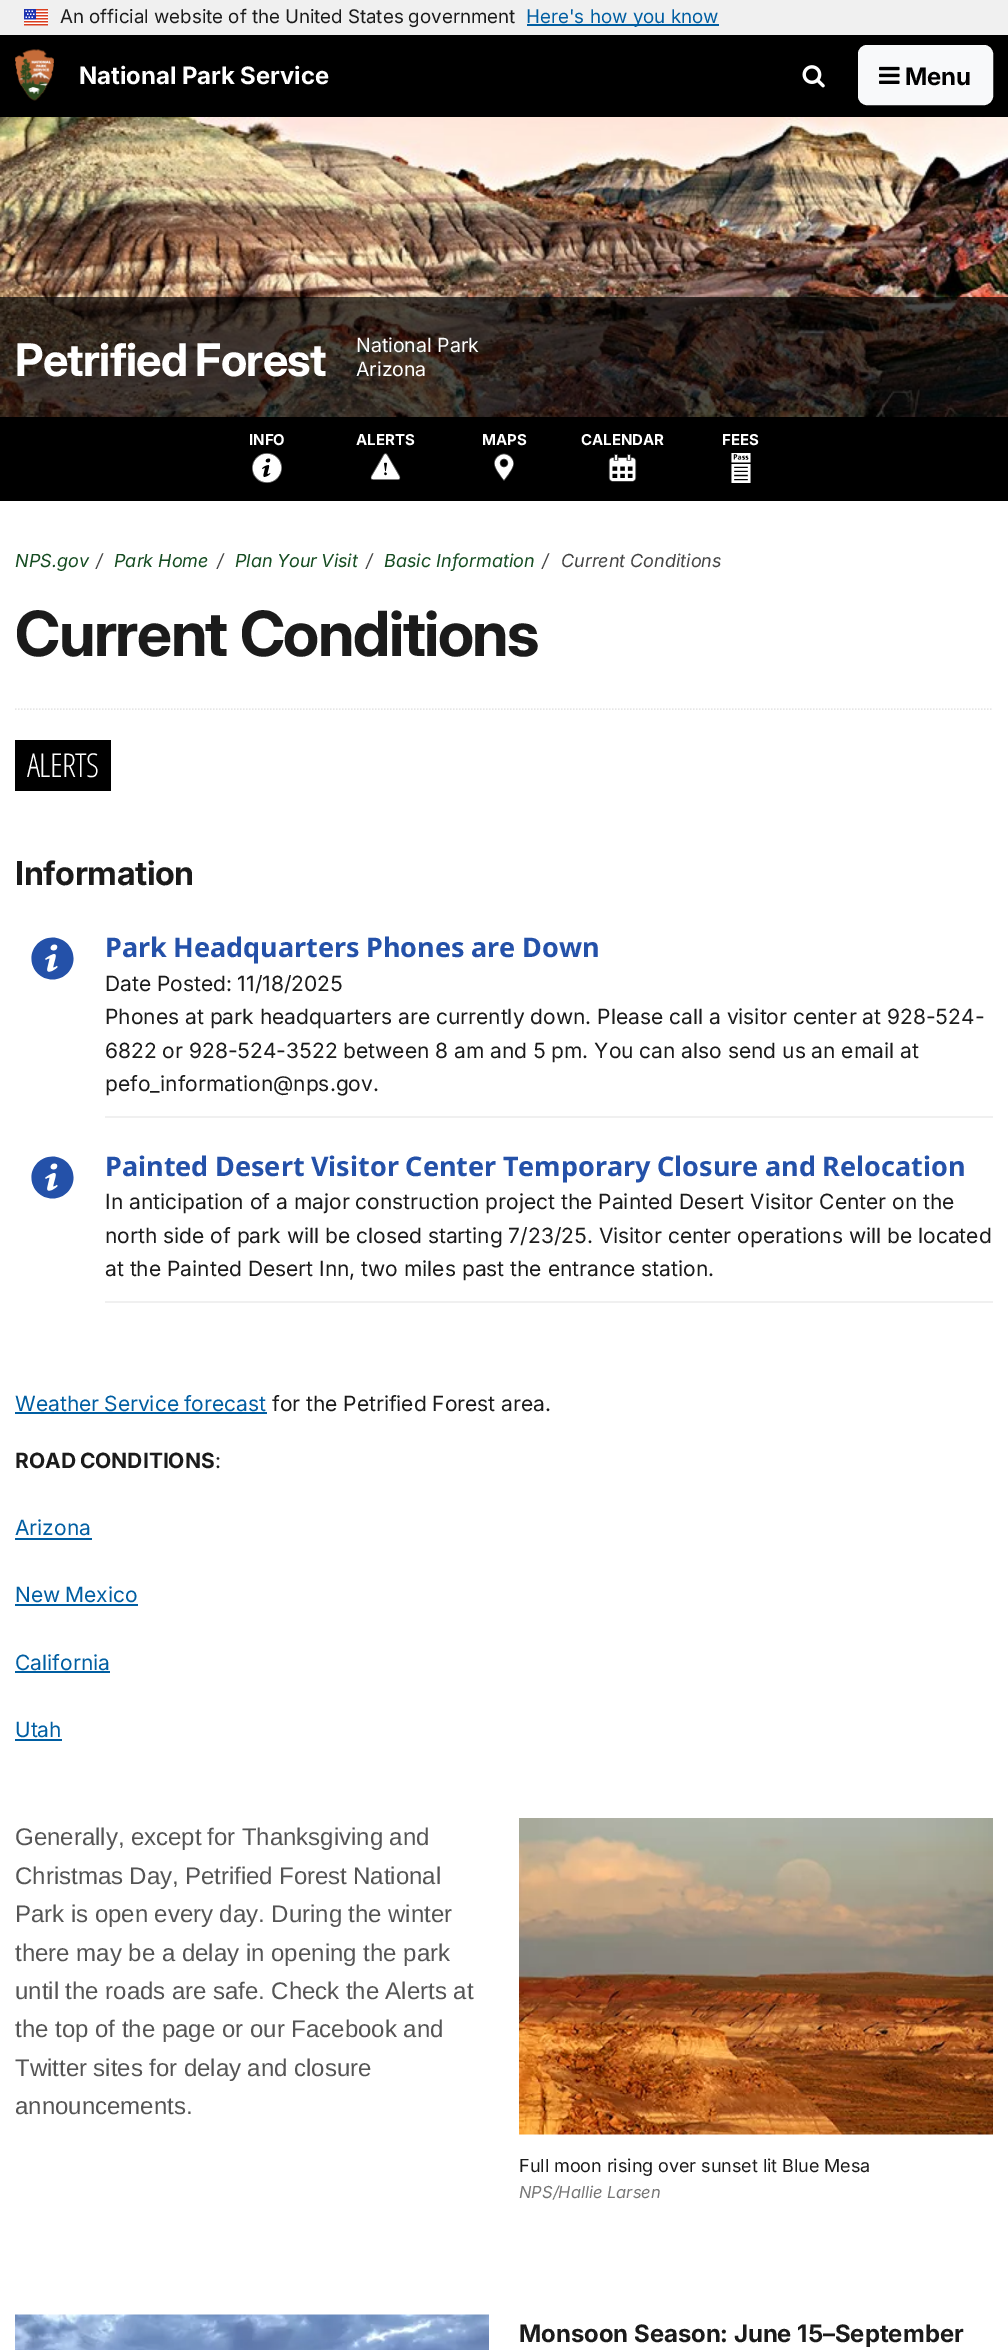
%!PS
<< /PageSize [1008 2350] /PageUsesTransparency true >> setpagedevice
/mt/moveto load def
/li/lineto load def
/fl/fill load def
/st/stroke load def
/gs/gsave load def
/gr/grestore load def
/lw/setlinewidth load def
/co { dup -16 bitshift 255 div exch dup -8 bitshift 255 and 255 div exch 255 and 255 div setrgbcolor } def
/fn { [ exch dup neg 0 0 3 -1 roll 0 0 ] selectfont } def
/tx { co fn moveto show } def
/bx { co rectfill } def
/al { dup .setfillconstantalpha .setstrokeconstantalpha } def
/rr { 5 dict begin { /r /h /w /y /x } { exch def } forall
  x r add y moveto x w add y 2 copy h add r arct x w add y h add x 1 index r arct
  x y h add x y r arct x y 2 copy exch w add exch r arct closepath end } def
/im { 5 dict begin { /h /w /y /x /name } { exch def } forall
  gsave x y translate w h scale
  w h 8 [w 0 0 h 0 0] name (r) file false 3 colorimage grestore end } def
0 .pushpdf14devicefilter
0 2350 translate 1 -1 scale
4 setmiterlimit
0 0 1008 2350 16#FFFFFF bx
0 0 1008 35 16#F0F0F0 bx
(media/1.raw) 24 9 24 17 im
527 24 192 2 16#005EA2 bx
0 35 1008 82 16#000000 bx
(media/2.raw) 15 49 39 52 im
(media/3.raw) 802 65 23 23 im
16#F8F9FA co
859.5 46.5 132 57 7.5 rr gs fl gr
3 lw
st
(media/4.raw) 879 66 21 18 im
(media/5.raw) 0 117 1008 300 im
0.7 al
0 297 1008 120 16#000000 bx
1 al
0 417 1008 84 16#000000 bx
(media/6.raw) 252 453 30 30 im
(media/7.raw) 370 453 31 27 im
(media/8.raw) 494 453 20 28 im
(media/9.raw) 608 454 29 28 im
(media/10.raw) 731 453 20 30 im
16#E6E6E6 co
1.5 lw
[1.5 1.5] 0 setdash
15 709 mt 993 709 li st
15 740 96 51 16#000000 bx
(media/11.raw) 31 937 43 43 im
105 1116 888 2 16#F0F0F0 bx
(media/11.raw) 31 1156 43 43 im
105 1301 888 2 16#F0F0F0 bx
15 1412 252 2 16#005EA2 bx
15 1538 77 2 16#005EA2 bx
15 1604 123 2 16#005EA2 bx
15 1671 95 2 16#005EA2 bx
15 1739 47 2 16#005EA2 bx
(media/12.raw) 519 1818 474 317 im
(media/13.raw) 15 2314 474 36 im
/Inter-Regular 18.75 fn
16#1B1B1B co
60 23 mt -.25 0 32 (An official website of the United States government) widthshow
(Here's how you know) 526 23 /Inter-Regular 18.75 16#005EA2 tx
(National Park Service) 79 84 /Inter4-Bold 24 16#FFFFFF tx
(Menu) 905 85 /Inter4-Bold 24 16#000000 tx
/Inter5-Bold 45 fn
16#FFFFFF co
15 376 mt -1 0 32 -.75 0 (Petrified Forest) awidthshow
(National Park) 356 352 /Inter-Regular 19.5 16#FFFFFF tx
(Arizona) 356 376 /Inter-Regular 19.5 16#FFFFFF tx
(INFO) 249 445 /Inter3-Bold 15 16#FFFFFF tx
(ALERTS) 356 445 /Inter3-Bold 15 16#FFFFFF tx
(MAPS) 482 445 /Inter3-Bold 15 16#FFFFFF tx
(CALENDAR) 581 445 /Inter3-Bold 15 16#FFFFFF tx
(FEES) 722 445 /Inter3-Bold 15 16#FFFFFF tx
(NPS.gov) 15 567 /Inter-Italic 18 16#154C21 tx
(/) 96 567 /Inter-Italic 18 16#454545 tx
(Park Home) 114 567 /Inter-Italic 18 16#154C21 tx
(/) 217 567 /Inter-Italic 18 16#454545 tx
16#154C21 co
235 567 mt -1 0 32 (Plan Your Visit) widthshow
(/) 366 567 /Inter-Italic 18 16#454545 tx
(Basic Information) 384 567 /Inter-Italic 18 16#154C21 tx
(/) 542 567 /Inter-Italic 18 16#454545 tx
(Current Conditions) 561 567 /Inter-Italic 18 16#454545 tx
/Inter-Bold 62.25 fn
16#1B1B1B co
15 656 mt 1 0 32 -1.5 0 (Current Conditions) awidthshow
/OpenSansCondensed-Light 33 fn
16#FFFFFF co
27 777 mt -.75 0 (ALERTS) ashow
/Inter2-Bold 33 fn
16#1B1B1B co
15 885 mt -.4 0 (Information) ashow
/NotoSans-Bold 27 fn
16#2451A9 co
105 957 mt -.5 0 32 (Park Headquarters Phones are Down) widthshow
/Inter-Regular 21 fn
16#1B1B1B co
105 991 mt -.25 0 32 (Date Posted: 11/18/2025) widthshow
(Phones at park headquarters are currently down. Please call a visitor center at 928-524-) 105 1024 /Inter-Regular 21 16#1B1B1B tx
105 1058 mt -.1 0 32 (6822 or 928-524-3522 between 8 am and 5 pm. You can also send us an email at) widthshow
(pefo_information@nps.gov.) 105 1091 /Inter-Regular 21 16#1B1B1B tx
/NotoSans-Bold 27 fn
16#2451A9 co
105 1176 mt -.5 0 32 (Painted Desert Visitor Center Temporary Closure and Relocation) widthshow
(In anticipation of a major construction project the Painted Desert Visitor Center on the) 105 1209 /Inter-Regular 21 16#1B1B1B tx
(north side of park will be closed starting 7/23/25. Visitor center operations will be located) 105 1243 /Inter-Regular 21 16#1B1B1B tx
(at the Painted Desert Inn, two miles past the entrance station.) 105 1276 /Inter-Regular 21 16#1B1B1B tx
16#005EA2 co
15 1411 mt -1 0 32 (Weather Service forecast) widthshow
16#1B1B1B co
272 1411 mt -.25 0 32 (for the Petrified Forest area.) widthshow
/Inter3-Bold 21 fn
15 1468 mt -1 0 32 (ROAD CONDITIONS) widthshow
(:) 215 1468 /Inter-Regular 21 16#1B1B1B tx
(Arizona) 15 1535 /Inter-Regular 21 16#005EA2 tx
15 1602 mt -1 0 32 (New Mexico) widthshow
(California) 15 1670 /Inter-Regular 21 16#005EA2 tx
(Utah) 15 1737 /Inter-Regular 21 16#005EA2 tx
/LiberationSans-Regular 24 fn
16#555555 co
15 1845 mt -.5 0 32 (Generally, except for Thanksgiving and) widthshow
15 1884 mt -.5 0 32 (Christmas Day, Petrified Forest National) widthshow
15 1922 mt -.25 0 32 (Park is open every day. During the winter) widthshow
(there may be a delay in opening the park) 15 1961 /LiberationSans-Regular 24 16#555555 tx
15 1999 mt -.25 0 32 (until the roads are safe. Check the Alerts at) widthshow
(the top of the page or our Facebook and) 15 2037 /LiberationSans-Regular 24 16#555555 tx
15 2076 mt -.25 0 32 (Twitter sites for delay and closure) widthshow
(announcements.) 15 2114 /LiberationSans-Regular 24 16#555555 tx
/Inter-Regular 18 fn
16#1B1B1B co
519 2172 mt -.25 0 32 (Full moon rising over sunset lit Blue Mesa) widthshow
(NPS/Hallie Larsen) 519 2198 /Inter-Italic 16.5 16#757575 tx
(Monsoon Season: June 15–September) 519 2342 /Inter4-Bold 24 16#1B1B1B tx
.poppdf14devicefilter showpage
